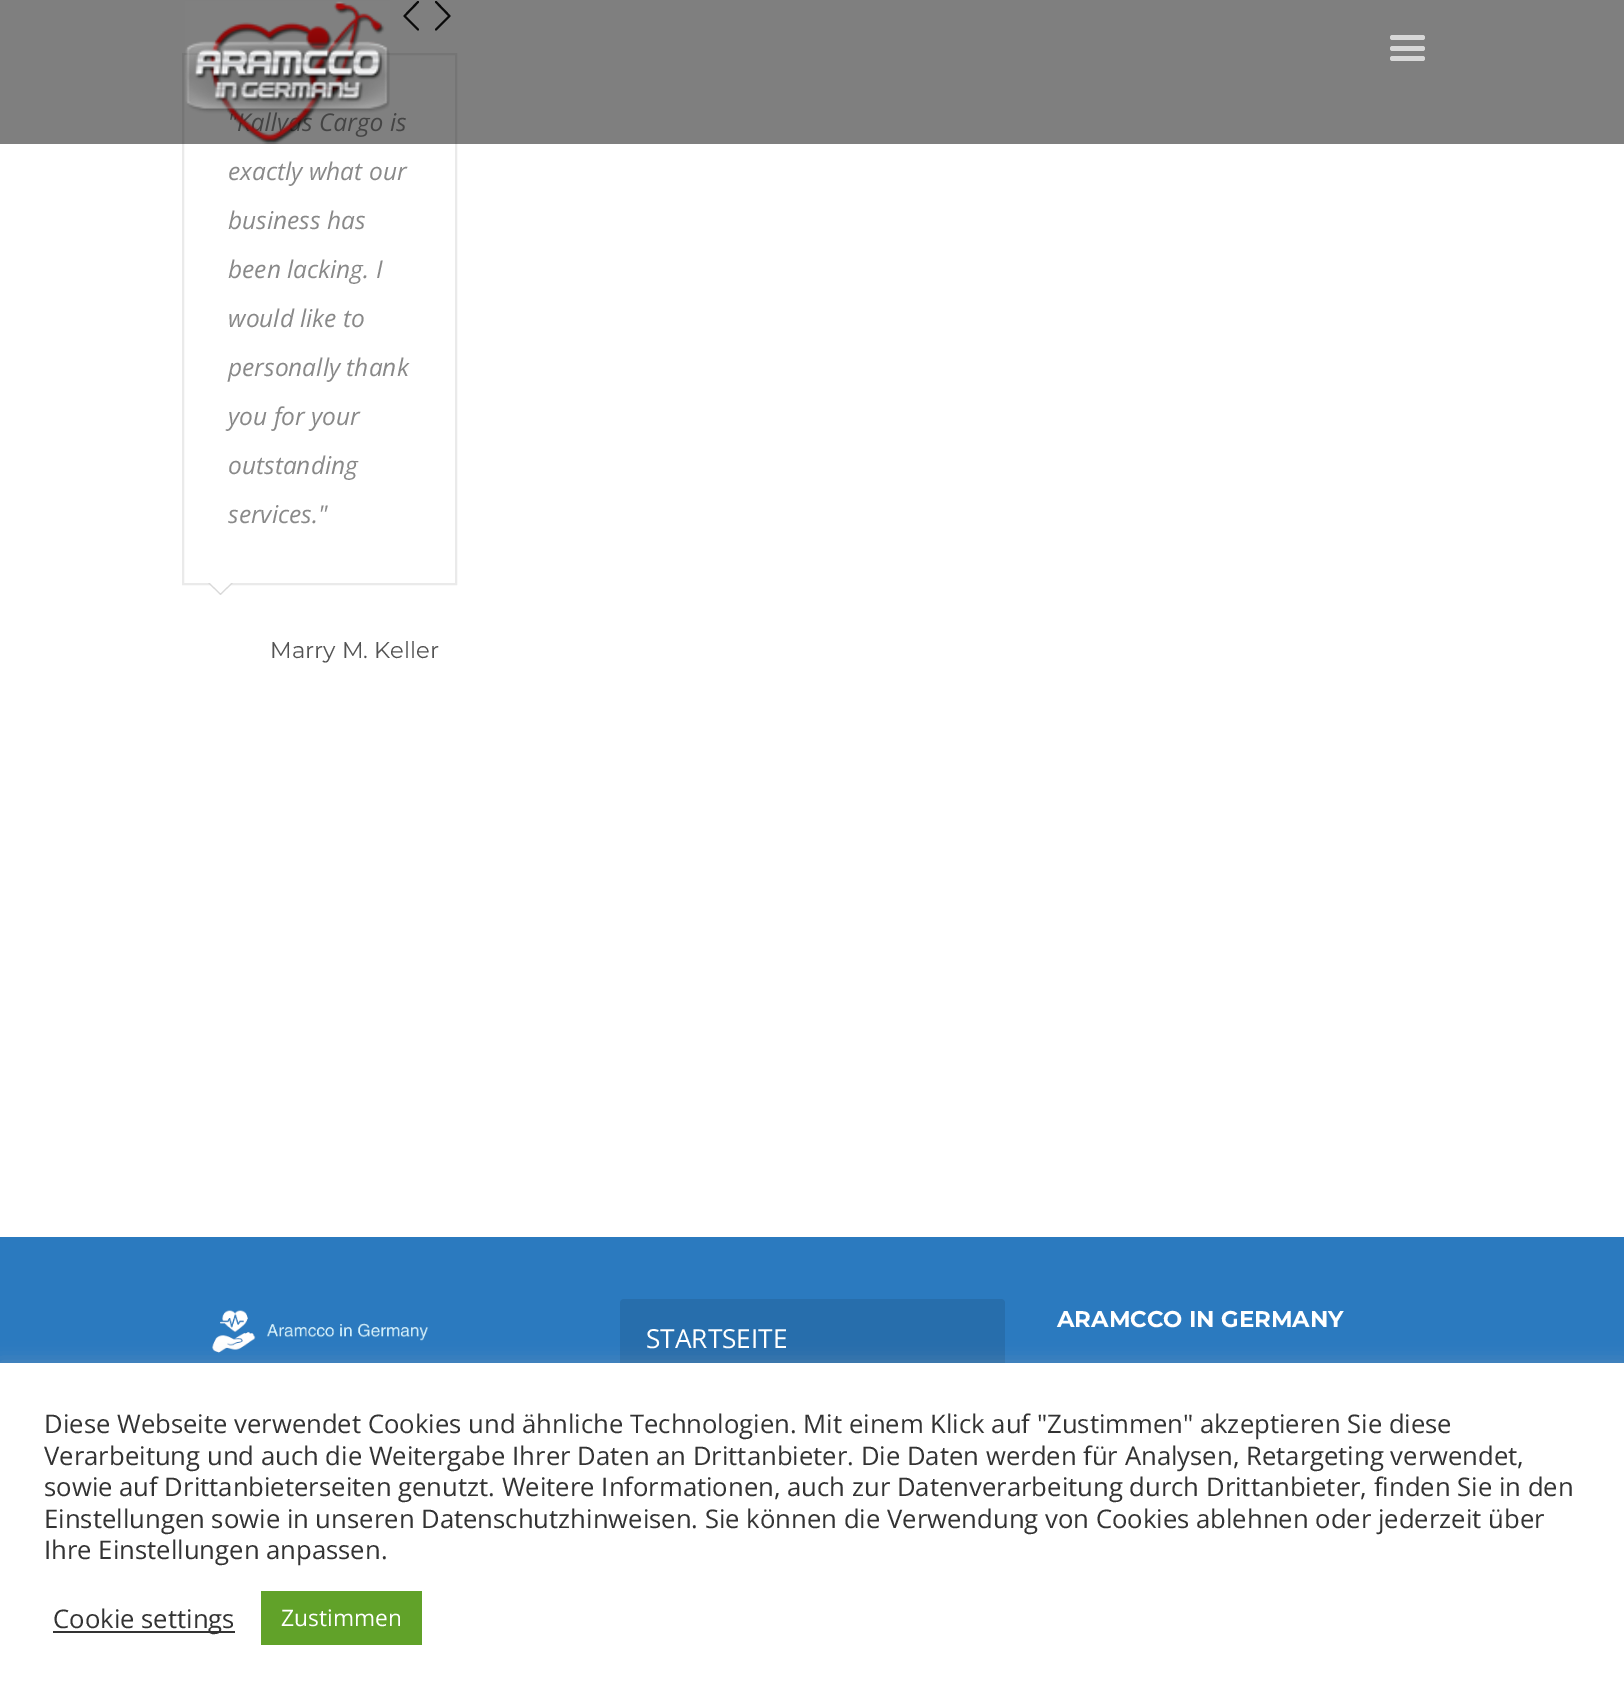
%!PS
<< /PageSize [1624 1696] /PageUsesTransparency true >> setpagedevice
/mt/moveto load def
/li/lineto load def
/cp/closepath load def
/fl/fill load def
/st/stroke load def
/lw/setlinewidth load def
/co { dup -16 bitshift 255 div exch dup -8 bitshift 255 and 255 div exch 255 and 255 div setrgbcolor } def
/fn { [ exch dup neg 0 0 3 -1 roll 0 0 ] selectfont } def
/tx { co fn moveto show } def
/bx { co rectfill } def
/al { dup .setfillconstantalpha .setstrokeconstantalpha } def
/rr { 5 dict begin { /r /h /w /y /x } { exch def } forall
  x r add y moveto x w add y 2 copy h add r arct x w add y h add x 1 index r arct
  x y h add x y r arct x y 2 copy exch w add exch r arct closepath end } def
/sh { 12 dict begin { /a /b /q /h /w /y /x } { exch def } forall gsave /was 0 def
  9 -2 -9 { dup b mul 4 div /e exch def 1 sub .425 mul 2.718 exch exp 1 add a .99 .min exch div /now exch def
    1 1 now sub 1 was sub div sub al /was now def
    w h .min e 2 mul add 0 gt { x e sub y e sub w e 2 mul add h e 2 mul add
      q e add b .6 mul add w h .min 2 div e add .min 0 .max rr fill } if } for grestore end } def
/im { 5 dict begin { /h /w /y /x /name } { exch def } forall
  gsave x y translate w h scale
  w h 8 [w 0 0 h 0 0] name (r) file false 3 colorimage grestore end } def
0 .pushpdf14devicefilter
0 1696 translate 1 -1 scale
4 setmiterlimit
0 0 1624 1696 16#FFFFFF bx
16#141414 co
2 lw
1 setlinecap
1 setlinejoin
418 2 mt 404.5 16 li 418 29.5 li 436 2 mt 449.5 16 li 436 29.5 li st
16#EAEAEA co
0 setlinecap
0 setlinejoin
183 54 273 530 rectstroke
16#D9D9D9 co
208 583 mt 233 583 li 220.5 595 li cp fl
16#FFFFFF co
208 581 mt 233 581 li 220.5 593 li cp fl
0 1237 1624 126 16#2B7ABF bx
(media/2.raw) 212 1310 217 43 im
16#276EAC co
620 1299 385 78 4 rr fl
16#ACABAB co
0 1362 1624 334 0 9 .3 sh
0 1363 1624 333 16#FFFFFF bx
53 1631 182 2 16#333333 bx
261 1591 161 54 16#61A229 bx
(l) 264 131 /OpenSans-Italic 24.5 16#898989 tx
(s Cargo is) 302 131 /OpenSans-Italic 24.5 16#898989 tx
0.5 al
0 0 1624 144 16#000000 bx
1 al
16#D7D7D7 co
1390 56 35 5 2.5 rr fl
1390 46 35 5 2.5 rr fl
1390 35 35 5 2.5 rr fl
(media/1.raw) 185 1 205 143 im
(exactly what our) 228 180 /OpenSans-Italic 24.5 16#898989 tx
(business has) 228 229 /OpenSans-Italic 24.5 16#898989 tx
(been lacking. I) 228 278 /OpenSans-Italic 24.5 16#898989 tx
(would like to) 228 327 /OpenSans-Italic 24.5 16#898989 tx
(personally thank) 228 376 /OpenSans-Italic 24.5 16#898989 tx
(you for your) 228 425 /OpenSans-Italic 24.5 16#898989 tx
(outstanding) 228 474 /OpenSans-Italic 24.5 16#898989 tx
(services.") 228 523 /OpenSans-Italic 24.5 16#898989 tx
(Marry M. Keller) 270 658 /Montserrat-Regular 22.75 16#535353 tx
(ARAMCCO IN GERMANY) 1057 1327 /Montserrat-Bold 22.75 16#FFFFFF tx
(STARTSEITE) 646 1348 /OpenSans-Regular 26.25 16#FFFFFF tx
(Diese Webseite verwendet Cookies und ähnliche Technologien. Mit einem Klick auf "Zustimmen" akzeptieren Sie diese) 44 1433 /OpenSans-Regular 25.67 16#333333 tx
(Verarbeitung und auch die Weitergabe Ihrer Daten an Drittanbieter. Die Daten werden für Analysen, Retargeting verwendet,) 44 1465 /OpenSans-Regular 25.67 16#333333 tx
(sowie auf Drittanbieterseiten genutzt. Weitere Informationen, auch zur Datenverarbeitung durch Drittanbieter, finden Sie in den) 44 1496 /OpenSans-Regular 25.67 16#333333 tx
(Einstellungen sowie in unseren Datenschutzhinweisen. Sie können die Verwendung von Cookies ablehnen oder jederzeit über) 44 1528 /OpenSans-Regular 25.67 16#333333 tx
(Ihre Einstellungen anpassen.) 44 1559 /OpenSans-Regular 25.67 16#333333 tx
(Cookie settings) 53 1628 /OpenSans-Regular 25.67 16#333333 tx
(Zustimmen) 281 1626 /OpenSans-Regular 22.75 16#FFFFFF tx
.poppdf14devicefilter showpage
